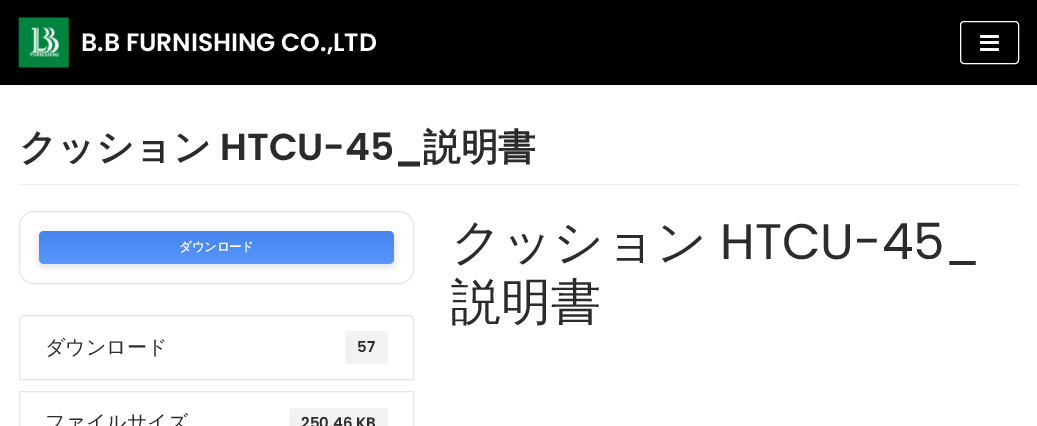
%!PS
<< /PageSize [1037 426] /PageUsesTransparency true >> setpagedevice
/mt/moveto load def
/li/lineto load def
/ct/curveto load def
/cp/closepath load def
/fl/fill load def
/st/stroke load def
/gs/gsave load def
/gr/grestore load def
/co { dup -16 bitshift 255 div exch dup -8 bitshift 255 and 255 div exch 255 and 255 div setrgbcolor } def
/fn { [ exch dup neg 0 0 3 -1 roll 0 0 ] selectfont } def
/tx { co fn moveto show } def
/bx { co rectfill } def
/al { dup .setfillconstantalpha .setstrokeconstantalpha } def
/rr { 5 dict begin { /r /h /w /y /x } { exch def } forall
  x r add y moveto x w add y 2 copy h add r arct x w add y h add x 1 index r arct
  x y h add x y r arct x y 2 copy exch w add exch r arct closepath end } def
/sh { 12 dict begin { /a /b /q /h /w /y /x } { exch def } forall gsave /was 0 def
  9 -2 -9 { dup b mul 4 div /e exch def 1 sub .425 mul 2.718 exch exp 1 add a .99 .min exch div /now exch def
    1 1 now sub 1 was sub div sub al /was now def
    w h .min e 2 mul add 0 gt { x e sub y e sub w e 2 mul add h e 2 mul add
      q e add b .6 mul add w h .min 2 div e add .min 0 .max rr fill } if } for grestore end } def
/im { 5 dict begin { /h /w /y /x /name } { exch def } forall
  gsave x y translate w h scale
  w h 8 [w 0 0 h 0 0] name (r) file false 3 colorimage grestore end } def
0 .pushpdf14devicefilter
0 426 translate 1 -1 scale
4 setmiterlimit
0 0 1037 426 16#FFFFFF bx
16#000000 co
0 -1 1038 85 0 2 .1 sh
0 0 1037 85 16#000000 bx
(media/1.raw) 18 17 51 51 im
16#FFFFFF co
960.5 21.5 58 42 3.5 rr st
980 35 19 3 1.5 rr fl
980 41 19 3 1.5 rr fl
980 48 19 3 1.5 rr fl
19 184 1000 1 16#EDEDED bx
16#000000 co
19 213 395 72 15 2 .04 sh
16#FFFFFF co
19.5 211.5 394 72 14.5 rr gs fl gr
16#E2E8F0 co
st
16#000000 co
39 234 355 32 5 4 .15 sh
16#4A8EFF co
39 231 355 33 5 rr fl
0.08 al
gs 39 231 355 33 5 rr clip newpath
<< /ShadingType 2 /ColorSpace /DeviceRGB /Coords [216 231 216 264] /Extend [true true] /Function << /FunctionType 2 /Domain [0 1] /C0 [0 0 0] /C1 [1 1 1] /N 1 >> >> shfill gr
1 al
16#E5E5E5 co
24 315.5 mt 409 315.5 li 411.5 315.5 413.5 317.5 413.5 320 ct 413.5 379.5 li 19.5 379.5 li 19.5 320 li 19.5 317.5 21.5 315.5 24 315.5 ct cp st
16#F2F2F2 co
345 331 43 33 4 rr fl
16#E5E5E5 co
19.5 391.5 394 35 rectstroke
16#F2F2F2 co
289 408 99 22 4 rr fl
(B.B FURNISHING CO.,LTD) 81 51 /Poppins-SemiBold 25 16#FFFFFF tx
(クッション) 19 160 /WenQuanYiZenHei-Bold 37.5 16#2B2B2B tx
(HTCU-45_) 220 160 /Poppins-SemiBold 37.5 16#2B2B2B tx
(説明書) 423 160 /WenQuanYiZenHei-Bold 37.5 16#2B2B2B tx
/WenQuanYiZenHei-Bold 12.5 fn
16#FFFFFF co
179 251 mt -.25 0 (ダウンロード) ashow
(ダウンロード) 45 354 /WenQuanYiZenHei-Medium 20 16#2B2B2B tx
(57) 357 352 /Poppins-SemiBold 15 16#2B2B2B tx
(ファイルサイズ) 45 429 /WenQuanYiZenHei-Medium 20 16#2B2B2B tx
(250.46 KB) 301 428 /Poppins-SemiBold 15 16#2B2B2B tx
(クッション) 451 259 /WenQuanYiZenHei-Medium 50 16#2B2B2B tx
(HTCU-45_) 720 259 /Poppins-Regular 50 16#2B2B2B tx
(説明書) 451 319 /WenQuanYiZenHei-Medium 50 16#2B2B2B tx
.poppdf14devicefilter showpage
